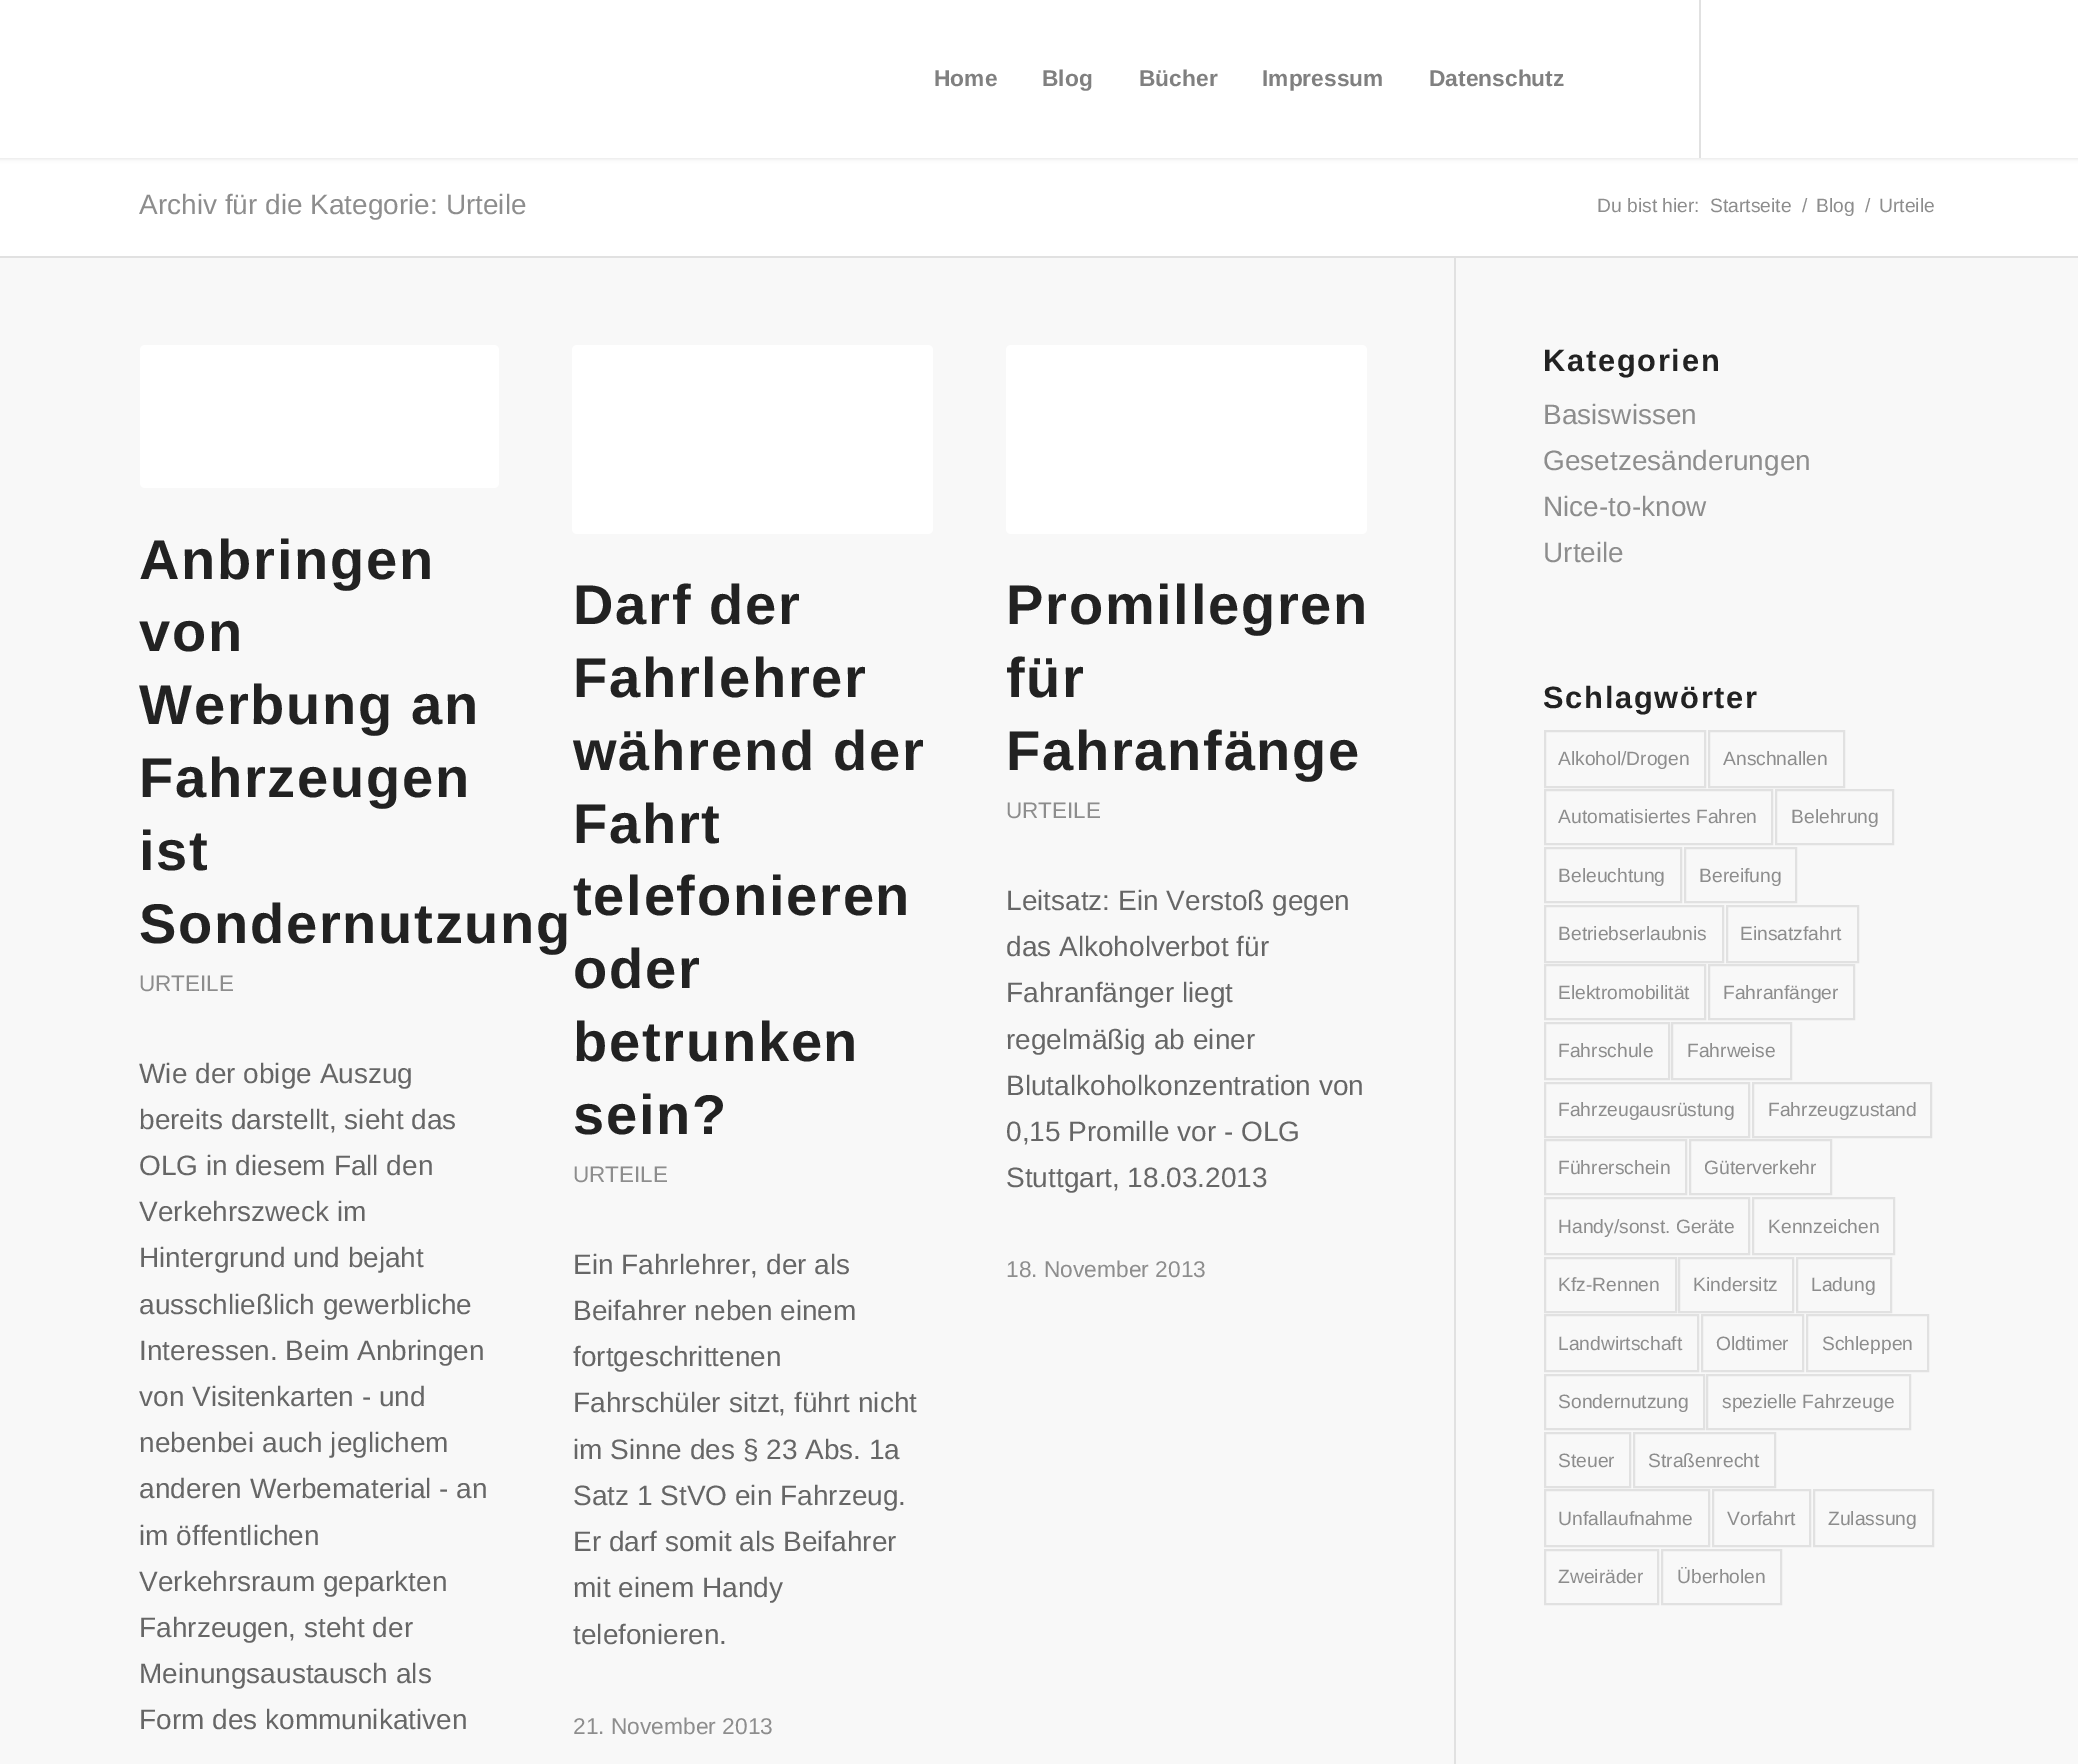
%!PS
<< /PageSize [2078 1764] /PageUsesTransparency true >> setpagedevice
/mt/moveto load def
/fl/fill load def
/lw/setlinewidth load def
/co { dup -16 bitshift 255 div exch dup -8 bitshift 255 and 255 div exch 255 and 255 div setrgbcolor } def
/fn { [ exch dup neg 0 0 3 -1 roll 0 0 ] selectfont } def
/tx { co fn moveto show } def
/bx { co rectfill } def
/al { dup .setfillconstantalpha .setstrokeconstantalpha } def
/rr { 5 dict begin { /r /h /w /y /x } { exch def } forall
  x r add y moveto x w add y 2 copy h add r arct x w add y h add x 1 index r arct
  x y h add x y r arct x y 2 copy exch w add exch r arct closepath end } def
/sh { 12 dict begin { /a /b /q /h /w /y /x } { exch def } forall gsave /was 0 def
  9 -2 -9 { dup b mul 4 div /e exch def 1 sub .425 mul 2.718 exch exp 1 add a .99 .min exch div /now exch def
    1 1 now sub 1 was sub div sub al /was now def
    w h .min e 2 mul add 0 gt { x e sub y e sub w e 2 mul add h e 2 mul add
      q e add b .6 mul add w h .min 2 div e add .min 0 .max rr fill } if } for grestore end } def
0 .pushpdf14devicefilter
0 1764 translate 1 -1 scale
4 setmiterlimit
0 0 2078 1764 16#FFFFFF bx
16#000000 co
-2 -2 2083 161 0 2 .1 sh
0 0 2078 158 16#FFFFFF bx
1699 0 2 158 16#E1E1E1 bx
0 258 2078 1506 16#F8F8F8 bx
0 256 2078 2 16#E1E1E1 bx
1454 257 2 1507 16#E1E1E1 bx
16#FFFFFF co
140 345 359 143 5 rr fl
572 345 361 189 5 rr fl
1006 345 361 189 5 rr fl
16#E1E1E1 co
2 lw
1545 731 160 56 rectstroke
1709 731 135 56 rectstroke
1545 790 227 54 rectstroke
1776 790 117 54 rectstroke
1545 848 136 54 rectstroke
1685 848 111 54 rectstroke
1545 906 178 56 rectstroke
1727 906 131 56 rectstroke
1545 965 160 54 rectstroke
1709 965 145 54 rectstroke
1545 1023 124 56 rectstroke
1672 1023 119 56 rectstroke
1545 1083 204 54 rectstroke
1753 1083 178 54 rectstroke
1545 1140 141 54 rectstroke
1690 1140 141 54 rectstroke
1545 1198 204 56 rectstroke
1753 1198 141 56 rectstroke
1545 1258 131 54 rectstroke
1679 1258 114 54 rectstroke
1797 1258 94 54 rectstroke
1545 1315 153 56 rectstroke
1702 1315 101 56 rectstroke
1807 1315 121 56 rectstroke
1545 1375 159 54 rectstroke
1707 1375 203 54 rectstroke
1545 1433 85 54 rectstroke
1634 1433 141 54 rectstroke
1545 1490 164 56 rectstroke
1713 1490 97 56 rectstroke
1814 1490 119 56 rectstroke
1545 1550 113 54 rectstroke
1662 1550 119 54 rectstroke
(Home) 934 86 /LiberationSans-Bold 22.75 16#808080 tx
(Blog) 1042 86 /LiberationSans-Bold 22.75 16#808080 tx
(Bücher) 1139 86 /LiberationSans-Bold 22.75 16#808080 tx
(Impressum) 1262 86 /LiberationSans-Bold 22.75 16#808080 tx
(Datenschutz) 1429 86 /LiberationSans-Bold 22.75 16#808080 tx
(Archiv für die Kategorie: Urteile) 139 214 /LiberationSans-Regular 28 16#8D8D8D tx
(Du bist hier:) 1597 212 /LiberationSans-Regular 19.25 16#8D8D8D tx
(Startseite) 1710 212 /LiberationSans-Regular 19.25 16#8D8D8D tx
(/) 1802 212 /LiberationSans-Regular 19.25 16#8D8D8D tx
(Blog) 1816 212 /LiberationSans-Regular 19.25 16#8D8D8D tx
(/) 1865 212 /LiberationSans-Regular 19.25 16#8D8D8D tx
(Urteile) 1879 212 /LiberationSans-Regular 19.25 16#8D8D8D tx
/LiberationSans-Bold 56 fn
16#222222 co
139 579 mt 1.75 0 (Anbringen) ashow
139 651 mt 1.75 0 (von) ashow
139 724 mt 1.75 0 (Werbung an) ashow
139 797 mt 1.75 0 (Fahrzeugen) ashow
139 870 mt 1.75 0 (ist) ashow
139 943 mt 1.75 0 (Sondernutzung) ashow
(URTEILE) 139 991 /LiberationSans-Regular 22.5 16#8D8D8D tx
(Wie der obige Auszug) 139 1083 /LiberationSans-Regular 28 16#666666 tx
(bereits darstellt, sieht das) 139 1129 /LiberationSans-Regular 28 16#666666 tx
(OLG in diesem Fall den) 139 1175 /LiberationSans-Regular 28 16#666666 tx
(Verkehrszweck im) 139 1221 /LiberationSans-Regular 28 16#666666 tx
(Hintergrund und bejaht) 139 1267 /LiberationSans-Regular 28 16#666666 tx
(ausschließlich gewerbliche) 139 1314 /LiberationSans-Regular 28 16#666666 tx
(Interessen. Beim Anbringen) 139 1360 /LiberationSans-Regular 28 16#666666 tx
(von Visitenkarten - und) 139 1406 /LiberationSans-Regular 28 16#666666 tx
(nebenbei auch jeglichem) 139 1452 /LiberationSans-Regular 28 16#666666 tx
(anderen Werbematerial - an) 139 1498 /LiberationSans-Regular 28 16#666666 tx
(im öffentlichen) 139 1545 /LiberationSans-Regular 28 16#666666 tx
(Verkehrsraum geparkten) 139 1591 /LiberationSans-Regular 28 16#666666 tx
(Fahrzeugen, steht der) 139 1637 /LiberationSans-Regular 28 16#666666 tx
(Meinungsaustausch als) 139 1683 /LiberationSans-Regular 28 16#666666 tx
(Form des kommunikativen) 139 1729 /LiberationSans-Regular 28 16#666666 tx
/LiberationSans-Bold 56 fn
16#222222 co
573 624 mt 1.75 0 (Darf der) ashow
573 697 mt 1.75 0 (Fahrlehrer) ashow
573 770 mt 1.75 0 (während der) ashow
573 843 mt 1.75 0 (Fahrt) ashow
573 915 mt 1.75 0 (telefonieren) ashow
573 988 mt 1.75 0 (oder) ashow
573 1061 mt 1.75 0 (betrunken) ashow
573 1134 mt 1.75 0 (sein?) ashow
(URTEILE) 573 1182 /LiberationSans-Regular 22.5 16#8D8D8D tx
(Ein Fahrlehrer, der als) 573 1274 /LiberationSans-Regular 28 16#666666 tx
(Beifahrer neben einem) 573 1320 /LiberationSans-Regular 28 16#666666 tx
(fortgeschrittenen) 573 1366 /LiberationSans-Regular 28 16#666666 tx
(Fahrschüler sitzt, führt nicht) 573 1412 /LiberationSans-Regular 28 16#666666 tx
(im Sinne des § 23 Abs. 1a) 573 1459 /LiberationSans-Regular 28 16#666666 tx
(Satz 1 StVO ein Fahrzeug.) 573 1505 /LiberationSans-Regular 28 16#666666 tx
(Er darf somit als Beifahrer) 573 1551 /LiberationSans-Regular 28 16#666666 tx
(mit einem Handy) 573 1597 /LiberationSans-Regular 28 16#666666 tx
(telefonieren.) 573 1644 /LiberationSans-Regular 28 16#666666 tx
(21. November 2013) 573 1734 /LiberationSans-Regular 22.75 16#8D8D8D tx
/LiberationSans-Bold 56 fn
16#222222 co
1006 624 mt 1.75 0 (Promillegren) ashow
1006 697 mt 1.75 0 (für) ashow
1006 770 mt 1.75 0 (Fahranfänge) ashow
(URTEILE) 1006 818 /LiberationSans-Regular 22.5 16#8D8D8D tx
(Leitsatz: Ein Verstoß gegen) 1006 910 /LiberationSans-Regular 28 16#666666 tx
(das Alkoholverbot für) 1006 956 /LiberationSans-Regular 28 16#666666 tx
(Fahranfänger liegt) 1006 1002 /LiberationSans-Regular 28 16#666666 tx
(regelmäßig ab einer) 1006 1049 /LiberationSans-Regular 28 16#666666 tx
(Blutalkoholkonzentration von) 1006 1095 /LiberationSans-Regular 28 16#666666 tx
(0,15 Promille vor - OLG) 1006 1141 /LiberationSans-Regular 28 16#666666 tx
(Stuttgart, 18.03.2013) 1006 1187 /LiberationSans-Regular 28 16#666666 tx
(18. November 2013) 1006 1277 /LiberationSans-Regular 22.75 16#8D8D8D tx
/LiberationSans-Bold 30.75 fn
16#222222 co
1543 371 mt 1.75 0 (Kategorien) ashow
(Basiswissen) 1543 424 /LiberationSans-Regular 28 16#8D8D8D tx
(Gesetzesänderungen) 1543 470 /LiberationSans-Regular 28 16#8D8D8D tx
(Nice-to-know) 1543 516 /LiberationSans-Regular 28 16#8D8D8D tx
(Urteile) 1543 562 /LiberationSans-Regular 28 16#8D8D8D tx
/LiberationSans-Bold 30.75 fn
16#222222 co
1543 708 mt 1.75 0 (Schlagwörter) ashow
(Alkohol/Drogen) 1558 765 /LiberationSans-Regular 19.25 16#8D8D8D tx
(Anschnallen) 1723 765 /LiberationSans-Regular 19.25 16#8D8D8D tx
(Automatisiertes Fahren) 1558 823 /LiberationSans-Regular 19.25 16#8D8D8D tx
(Belehrung) 1791 823 /LiberationSans-Regular 19.25 16#8D8D8D tx
(Beleuchtung) 1558 882 /LiberationSans-Regular 19.25 16#8D8D8D tx
(Bereifung) 1699 882 /LiberationSans-Regular 19.25 16#8D8D8D tx
(Betriebserlaubnis) 1558 940 /LiberationSans-Regular 19.25 16#8D8D8D tx
(Einsatzfahrt) 1740 940 /LiberationSans-Regular 19.25 16#8D8D8D tx
(Elektromobilität) 1558 999 /LiberationSans-Regular 19.25 16#8D8D8D tx
(Fahranfänger) 1723 999 /LiberationSans-Regular 19.25 16#8D8D8D tx
(Fahrschule) 1558 1057 /LiberationSans-Regular 19.25 16#8D8D8D tx
(Fahrweise) 1687 1057 /LiberationSans-Regular 19.25 16#8D8D8D tx
(Fahrzeugausrüstung) 1558 1116 /LiberationSans-Regular 19.25 16#8D8D8D tx
(Fahrzeugzustand) 1768 1116 /LiberationSans-Regular 19.25 16#8D8D8D tx
(Führerschein) 1558 1174 /LiberationSans-Regular 19.25 16#8D8D8D tx
(Güterverkehr) 1704 1174 /LiberationSans-Regular 19.25 16#8D8D8D tx
(Handy/sonst. Geräte) 1558 1233 /LiberationSans-Regular 19.25 16#8D8D8D tx
(Kennzeichen) 1768 1233 /LiberationSans-Regular 19.25 16#8D8D8D tx
(Kfz-Rennen) 1558 1291 /LiberationSans-Regular 19.25 16#8D8D8D tx
(Kindersitz) 1693 1291 /LiberationSans-Regular 19.25 16#8D8D8D tx
(Ladung) 1811 1291 /LiberationSans-Regular 19.25 16#8D8D8D tx
(Landwirtschaft) 1558 1350 /LiberationSans-Regular 19.25 16#8D8D8D tx
(Oldtimer) 1716 1350 /LiberationSans-Regular 19.25 16#8D8D8D tx
(Schleppen) 1822 1350 /LiberationSans-Regular 19.25 16#8D8D8D tx
(Sondernutzung) 1558 1408 /LiberationSans-Regular 19.25 16#8D8D8D tx
(spezielle Fahrzeuge) 1722 1408 /LiberationSans-Regular 19.25 16#8D8D8D tx
(Steuer) 1558 1467 /LiberationSans-Regular 19.25 16#8D8D8D tx
(Straßenrecht) 1648 1467 /LiberationSans-Regular 19.25 16#8D8D8D tx
(Unfallaufnahme) 1558 1525 /LiberationSans-Regular 19.25 16#8D8D8D tx
(Vorfahrt) 1727 1525 /LiberationSans-Regular 19.25 16#8D8D8D tx
(Zulassung) 1828 1525 /LiberationSans-Regular 19.25 16#8D8D8D tx
(Zweiräder) 1558 1583 /LiberationSans-Regular 19.25 16#8D8D8D tx
(Überholen) 1677 1583 /LiberationSans-Regular 19.25 16#8D8D8D tx
.poppdf14devicefilter showpage
